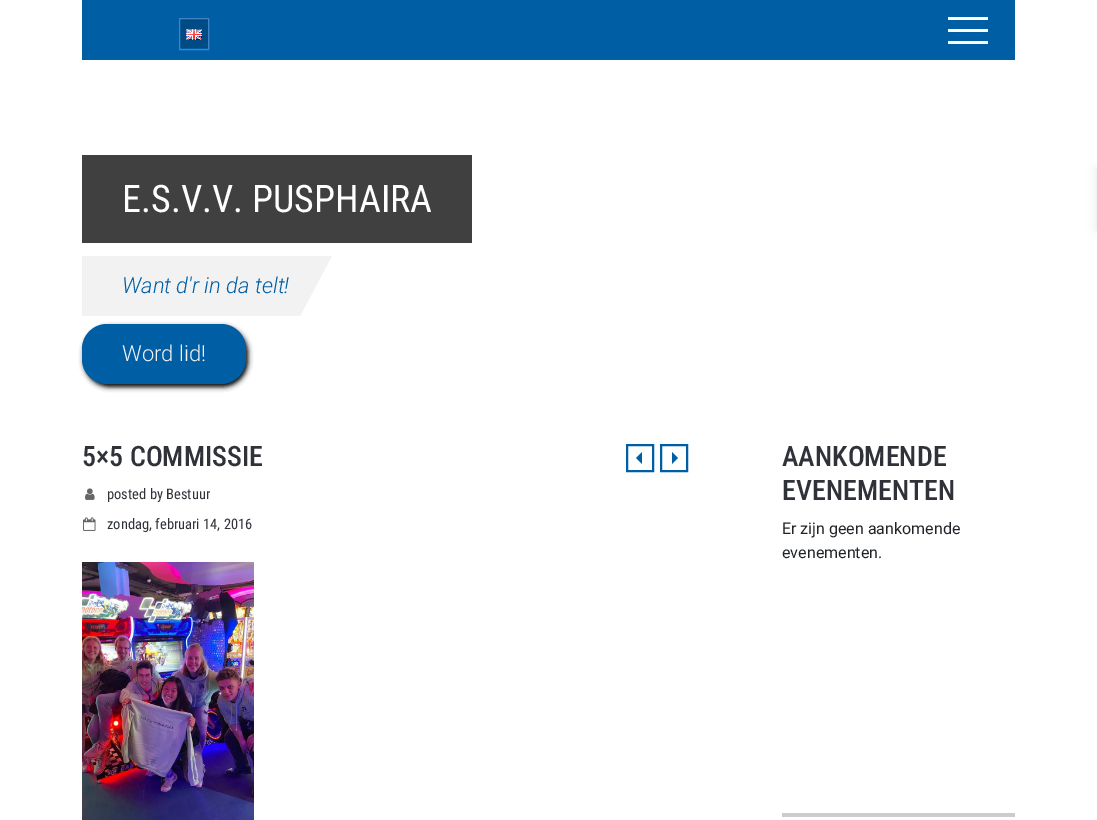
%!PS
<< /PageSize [1097 820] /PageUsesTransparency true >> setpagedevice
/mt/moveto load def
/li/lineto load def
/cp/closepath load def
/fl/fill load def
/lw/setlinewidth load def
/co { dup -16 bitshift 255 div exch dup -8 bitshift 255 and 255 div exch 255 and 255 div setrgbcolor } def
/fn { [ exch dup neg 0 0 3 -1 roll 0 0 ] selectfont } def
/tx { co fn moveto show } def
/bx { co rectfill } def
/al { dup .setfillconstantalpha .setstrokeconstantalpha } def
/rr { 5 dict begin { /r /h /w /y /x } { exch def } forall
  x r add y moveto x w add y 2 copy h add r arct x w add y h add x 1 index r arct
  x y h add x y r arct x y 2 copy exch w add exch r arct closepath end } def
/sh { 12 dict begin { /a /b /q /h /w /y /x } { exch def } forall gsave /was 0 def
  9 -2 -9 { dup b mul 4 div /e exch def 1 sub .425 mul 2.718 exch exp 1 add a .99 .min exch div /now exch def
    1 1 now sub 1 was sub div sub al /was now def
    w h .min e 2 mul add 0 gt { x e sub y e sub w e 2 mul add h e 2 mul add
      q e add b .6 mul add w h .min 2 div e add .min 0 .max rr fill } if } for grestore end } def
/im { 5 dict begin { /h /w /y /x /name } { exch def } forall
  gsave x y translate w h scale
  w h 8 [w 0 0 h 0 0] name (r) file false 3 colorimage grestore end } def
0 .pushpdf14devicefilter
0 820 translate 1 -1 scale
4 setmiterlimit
0 0 1097 820 16#FFFFFF bx
82 0 933 60 16#005EA5 bx
948 17 40 3 16#FFFFFF bx
948 29 40 3 16#FFFFFF bx
948 41 40 3 16#FFFFFF bx
180 19 28 29 16#004B84 bx
16#4184C7 co
179.5 18.5 29 31 rectstroke
(media/1.raw) 186 29 16 11 im
82 155 390 88 16#404040 bx
82 256 218 60 16#F2F2F2 bx
300 256 mt 332 256 li 300 316 li cp fl
16#000000 co
84 327 164 60 25 2.5 1 sh
16#005EA5 co
82 324 164 60 25 rr fl
2 lw
627 445 26 26 rectstroke
642 452 mt 642 464 li 636 458 li cp fl
661 445 26 26 rectstroke
672 464 mt 672 452 li 678 458 li cp fl
(media/2.raw) 85 488 10 12 im
(media/3.raw) 83 517 13 14 im
(media/4.raw) 82 562 172 258 im
782 813 233 4 16#CCCCCC bx
16#000000 co
1097 169 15 61 0 5 .1 sh
(E.S.V.V. PUSPHAIRA) 122 212 /RobotoCondensed-Regular 38 16#FFFFFF tx
(Want d'r in da telt!) 122 293 /Roboto-LightItalic 22 16#005EA5 tx
(Word lid!) 122 361 /Roboto-Light 22 16#F2F2F2 tx
(5×5 COMMISSIE) 82 466 /RobotoCondensed-Medium 28 16#2F3238 tx
(posted by Bestuur) 107 499 /RobotoCondensed-Regular 14.5 16#2F3238 tx
(zondag, februari 14, 2016) 107 529 /RobotoCondensed-Regular 14.5 16#2F3238 tx
(AANKOMENDE) 782 466 /RobotoCondensed-Medium 28 16#2F3238 tx
(EVENEMENTEN) 782 500 /RobotoCondensed-Medium 28 16#2F3238 tx
(Er zijn geen aankomende) 782 534 /Roboto-Regular 16 16#212529 tx
(evenementen.) 782 558 /Roboto-Regular 16 16#212529 tx
.poppdf14devicefilter showpage
